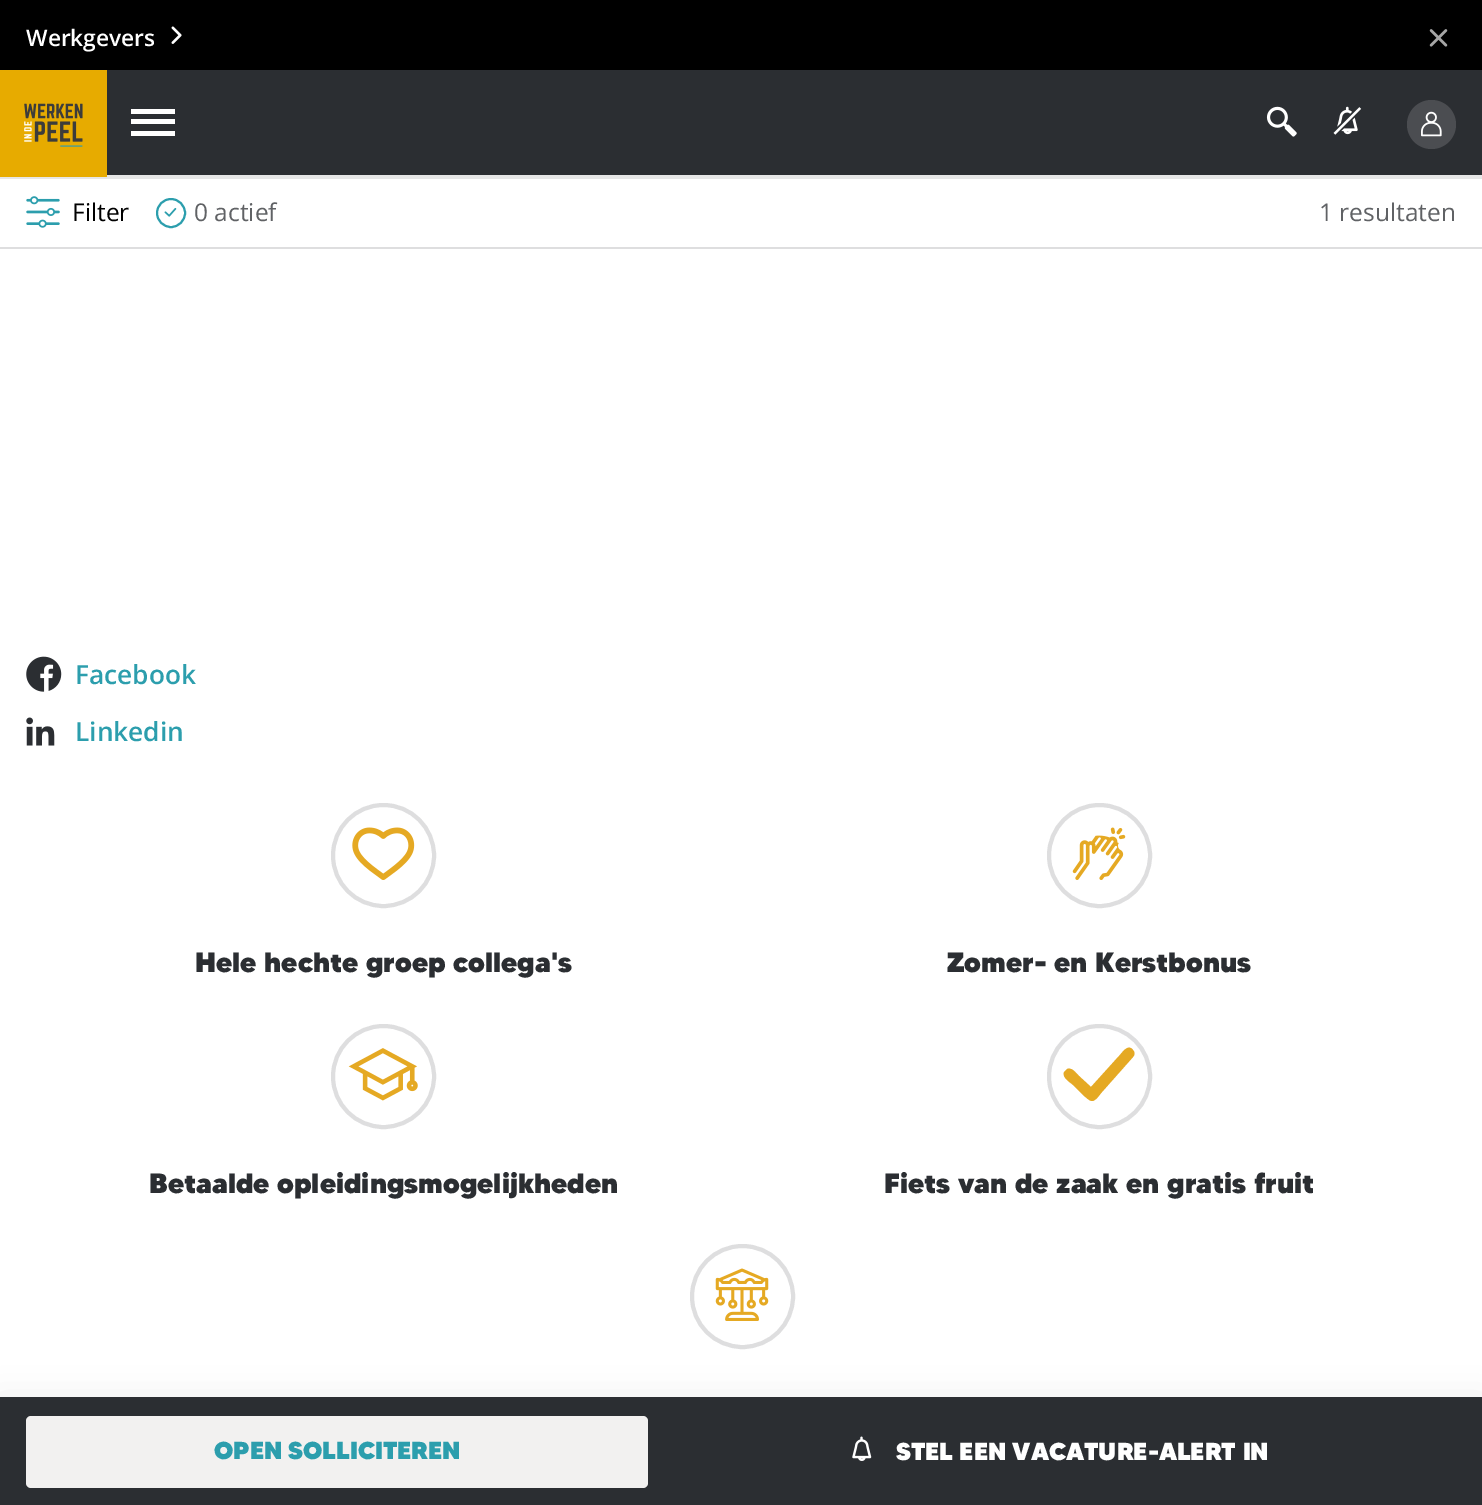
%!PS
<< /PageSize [1482 1505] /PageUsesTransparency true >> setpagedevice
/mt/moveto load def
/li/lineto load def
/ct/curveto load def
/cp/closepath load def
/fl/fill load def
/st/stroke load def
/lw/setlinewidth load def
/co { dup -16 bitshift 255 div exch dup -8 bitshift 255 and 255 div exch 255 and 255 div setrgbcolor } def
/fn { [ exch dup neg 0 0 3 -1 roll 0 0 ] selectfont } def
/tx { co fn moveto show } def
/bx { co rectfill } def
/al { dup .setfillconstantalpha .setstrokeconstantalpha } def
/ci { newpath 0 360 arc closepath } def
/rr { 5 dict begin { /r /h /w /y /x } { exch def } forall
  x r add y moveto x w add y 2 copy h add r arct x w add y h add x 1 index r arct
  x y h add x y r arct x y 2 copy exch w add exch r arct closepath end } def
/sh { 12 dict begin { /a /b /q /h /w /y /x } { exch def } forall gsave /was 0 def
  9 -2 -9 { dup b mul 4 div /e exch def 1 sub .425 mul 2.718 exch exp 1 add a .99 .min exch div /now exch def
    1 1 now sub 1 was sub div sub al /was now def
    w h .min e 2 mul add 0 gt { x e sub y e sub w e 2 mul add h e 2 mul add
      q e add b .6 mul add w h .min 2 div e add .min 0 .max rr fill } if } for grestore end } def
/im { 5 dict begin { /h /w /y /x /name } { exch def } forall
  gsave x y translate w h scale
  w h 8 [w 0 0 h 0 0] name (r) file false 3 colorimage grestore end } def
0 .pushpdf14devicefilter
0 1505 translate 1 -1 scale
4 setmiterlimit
0 0 1482 1505 16#FFFFFF bx
0 0 1482 70 16#000000 bx
(media/1.raw) 171 26 11 18 im
(media/2.raw) 1429 29 19 18 im
0 175 1482 4 16#E6E6E6 bx
107 70 1375 105 16#2B2E32 bx
(media/3.raw) 0 70 107 107 im
131 119 44 5 16#FFFFFF bx
131 109 44 5 16#FFFFFF bx
131 131 44 5 16#FFFFFF bx
(media/4.raw) 1266 106 31 31 im
(media/5.raw) 1333 106 29 29 im
16#4B4D51 co
1431.5 124.5 24.5 ci fl
(media/6.raw) 1421 111 21 26 im
0 247 1482 2 16#DEDEDF bx
(media/7.raw) 26 196 34 32 im
16#2C9EAD co
2 lw
171 213 14 ci st
(media/8.raw) 164 207 13 10 im
(media/9.raw) 26 656 36 36 im
(media/10.raw) 26 717 29 29 im
16#DEDEDF co
4 lw
383.5 855.5 50.5 ci st
(media/11.raw) 352 827 63 53 im
1099.5 855.5 50.5 ci st
(media/12.raw) 1072 827 54 53 im
383.5 1076.5 50.5 ci st
(media/13.raw) 348 1048 70 53 im
1099.5 1076.5 50.5 ci st
16#E5A923 co
1092 1101 mt 1089 1101 1086 1097 1084 1096 ct 1073 1085 li 1070 1082 1062 1078 1064 1072 ct 1065 1071 1066 1070 1067 1069 ct 1072 1067 1076 1073 1079 1076 ct 1091 1087 li 1119 1056 li 1122 1053 1128 1043 1133 1050 ct 1135 1052 1135 1055 1133 1057 ct 1102 1092 li 1100 1094 1096 1101 1092 1101 ct cp fl
16#DEDEDF co
742.5 1296.5 50.5 ci st
(media/14.raw) 715 1268 54 53 im
16#000000 co
0 1402 1482 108 0 16.5 .1 sh
0 1397 1482 108 16#2B2E32 bx
16#F2F1F0 co
26 1416 622 72 5 rr fl
(media/15.raw) 852 1436 20 25 im
(Werkgevers) 26 46 /OpenSans-SemiBold 22.75 16#FFFFFF tx
(Filter) 72 221 /OpenSans-Regular 24.5 16#000000 tx
(0 actief) 194 221 /OpenSans-Regular 24.5 16#606265 tx
(1 resultaten) 1319 221 /OpenSans-Regular 24.5 16#606265 tx
(Facebook) 75 684 /OpenSans-SemiBold 26.25 16#2C9EAD tx
(Linkedin) 75 741 /OpenSans-SemiBold 26.25 16#2C9EAD tx
(Hele hechte groep collega's) 195 972 /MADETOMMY-Black 28 16#2B2E32 tx
(Zomer- en Kerstbonus) 947 972 /MADETOMMY-Black 28 16#2B2E32 tx
(Betaalde opleidingsmogelijkheden) 149 1193 /MADETOMMY-Black 28 16#2B2E32 tx
(Fiets van de zaak en gratis fruit) 884 1193 /MADETOMMY-Black 28 16#2B2E32 tx
(OPEN SOLLICITEREN) 214 1459 /MADETOMMY-Black 24.5 16#2C9EAD tx
(STEL EEN VACATURE-ALERT IN) 896 1460 /MADETOMMY-Black 24.5 16#FFFFFF tx
.poppdf14devicefilter showpage
